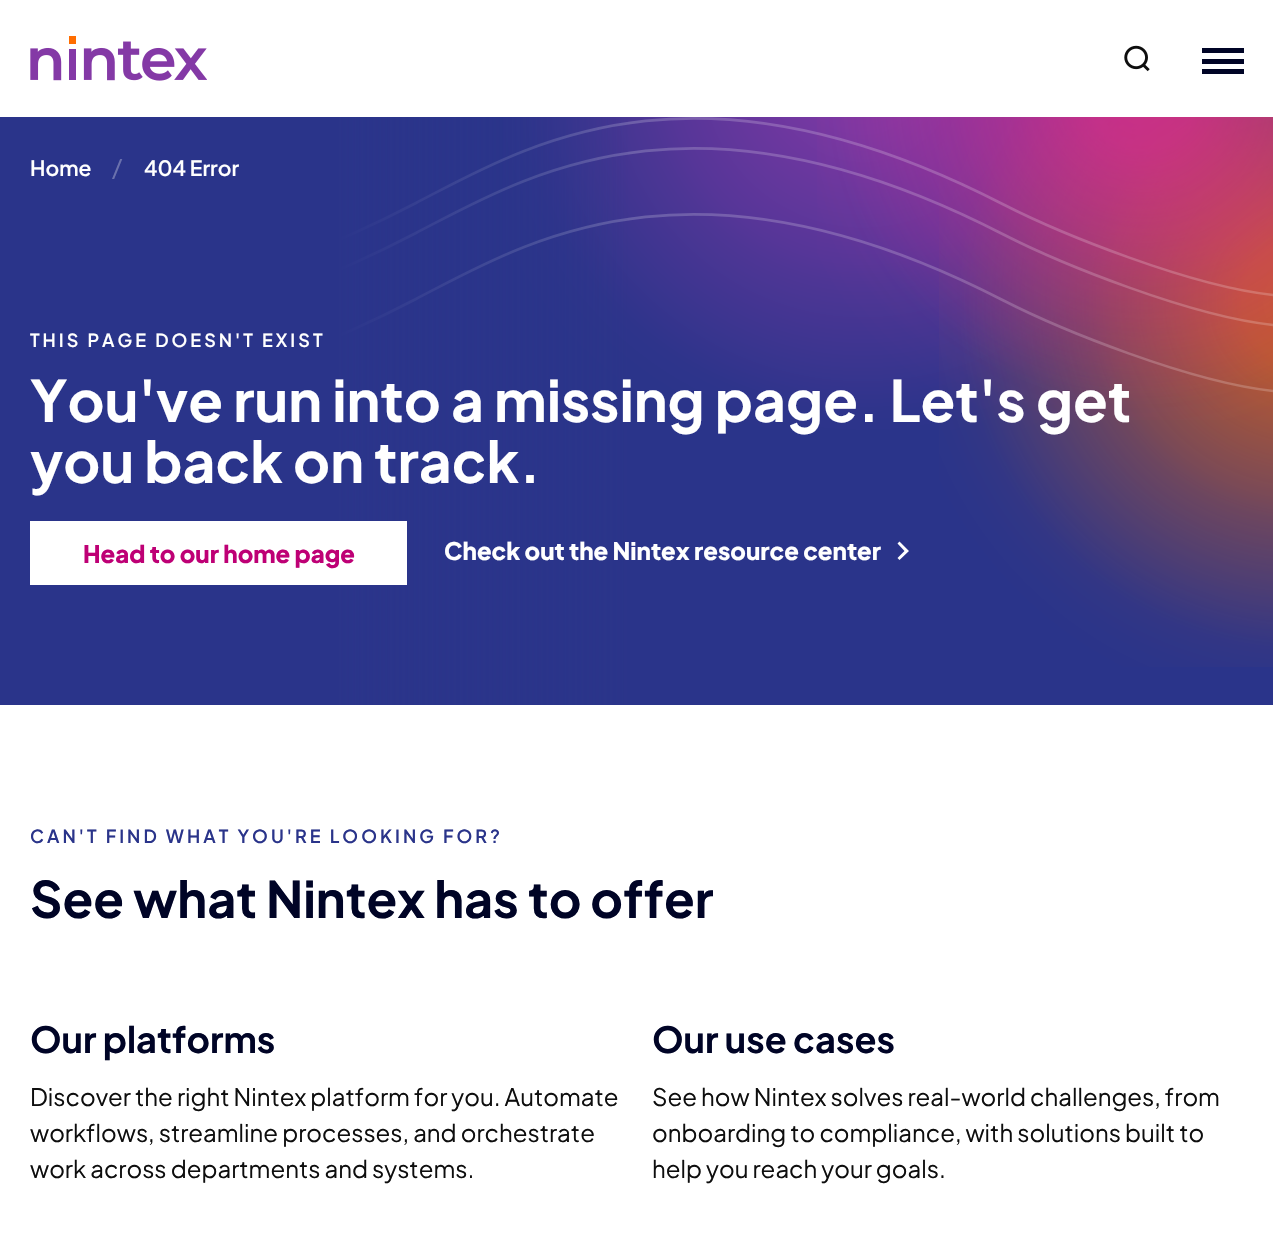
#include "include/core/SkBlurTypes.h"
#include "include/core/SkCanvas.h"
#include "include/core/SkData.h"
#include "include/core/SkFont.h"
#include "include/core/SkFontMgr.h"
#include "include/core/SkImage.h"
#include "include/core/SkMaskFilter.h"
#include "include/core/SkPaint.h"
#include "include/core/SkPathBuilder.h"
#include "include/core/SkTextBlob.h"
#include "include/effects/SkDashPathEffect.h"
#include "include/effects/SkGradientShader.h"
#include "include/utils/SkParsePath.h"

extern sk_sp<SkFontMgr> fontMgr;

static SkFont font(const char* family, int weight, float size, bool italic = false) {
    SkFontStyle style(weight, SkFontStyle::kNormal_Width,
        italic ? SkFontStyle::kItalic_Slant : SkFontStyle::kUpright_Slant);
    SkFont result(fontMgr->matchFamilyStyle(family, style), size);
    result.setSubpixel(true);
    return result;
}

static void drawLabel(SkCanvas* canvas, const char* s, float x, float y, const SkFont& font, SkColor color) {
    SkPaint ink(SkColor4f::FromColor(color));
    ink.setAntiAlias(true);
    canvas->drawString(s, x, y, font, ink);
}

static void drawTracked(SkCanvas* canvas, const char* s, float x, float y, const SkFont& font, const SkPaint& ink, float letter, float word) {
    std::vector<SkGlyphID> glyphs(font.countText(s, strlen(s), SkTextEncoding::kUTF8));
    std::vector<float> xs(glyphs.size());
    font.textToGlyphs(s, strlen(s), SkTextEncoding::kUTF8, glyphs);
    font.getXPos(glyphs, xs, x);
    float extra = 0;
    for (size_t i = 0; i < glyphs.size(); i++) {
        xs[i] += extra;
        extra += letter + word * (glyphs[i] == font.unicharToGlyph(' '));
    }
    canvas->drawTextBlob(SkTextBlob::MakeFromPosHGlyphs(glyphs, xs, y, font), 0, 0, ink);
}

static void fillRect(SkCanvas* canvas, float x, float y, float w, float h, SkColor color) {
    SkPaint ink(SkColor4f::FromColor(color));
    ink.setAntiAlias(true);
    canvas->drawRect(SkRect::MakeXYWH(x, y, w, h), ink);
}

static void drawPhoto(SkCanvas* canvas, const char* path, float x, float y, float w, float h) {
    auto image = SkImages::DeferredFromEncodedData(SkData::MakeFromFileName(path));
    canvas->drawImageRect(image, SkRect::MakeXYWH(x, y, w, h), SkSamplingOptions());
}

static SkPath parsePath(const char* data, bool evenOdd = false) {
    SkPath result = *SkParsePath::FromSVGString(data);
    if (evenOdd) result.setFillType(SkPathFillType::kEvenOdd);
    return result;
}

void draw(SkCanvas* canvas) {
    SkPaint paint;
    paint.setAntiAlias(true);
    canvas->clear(0xFFFFFFFF);
    drawPhoto(canvas, "assets/img1.png", 30, 36, 177, 45);
    drawPhoto(canvas, "assets/img2.png", 1124, 45, 26, 27);
    fillRect(canvas, 1202, 48, 42, 5, 0xFF000426);
    fillRect(canvas, 1202, 59, 42, 5, 0xFF000426);
    fillRect(canvas, 1202, 69, 42, 5, 0xFF000426);
    fillRect(canvas, 340, 117, 933, 588, 0xFF2A348A);
    {
        const SkColor colors[] = {0xFF7B39A3, 0xFF7A38A3, 0xFF7738A2, 0xFF563698, 0xFF4E3695, 0xFF2E348B, 0xFF2B348A, 0xFF2A348A};
        const float stops[] = {0, 0.08f, 0.15f, 0.47f, 0.53f, 0.84f, 0.92f, 1};
        SkMatrix m = SkMatrix::Translate(863, 67).preScale(413, 412);
        paint.setShader(SkGradientShader::MakeRadial({0, 0}, 1, colors, stops, 8, SkTileMode::kClamp, 0, &m));
        paint.setAlpha(255);
    }
    canvas->drawRect(SkRect::MakeXYWH(504, 117, 718, 313), paint);
    {
        const SkColor colors[] = {0xB3FF6D00, 0xB0FF6D00, 0xABFF6D00, 0x61FF6D00, 0x4FFF6D00, 0x0AFF6D00, 0x03FF6D00, 0x00FF6D00};
        const float stops[] = {0, 0.08f, 0.15f, 0.47f, 0.53f, 0.84f, 0.92f, 1};
        SkMatrix m = SkMatrix::Translate(1305, 302).preScale(412, 413);
        paint.setShader(SkGradientShader::MakeRadial({0, 0}, 1, colors, stops, 8, SkTileMode::kClamp, 0, &m));
        paint.setAlpha(255);
    }
    canvas->drawRect(SkRect::MakeXYWH(939, 117, 334, 550), paint);
    {
        const SkColor colors[] = {0xB3ED2891, 0xB0ED2891, 0xABED2891, 0x61ED2891, 0x4FED2891, 0x0AED2891, 0x03ED2891, 0x00ED2891};
        const float stops[] = {0, 0.08f, 0.15f, 0.47f, 0.53f, 0.84f, 0.92f, 1};
        paint.setShader(SkGradientShader::MakeRadial({1143, 93}, 368, colors, stops, 8, SkTileMode::kClamp));
        paint.setAlpha(255);
    }
    canvas->drawRect(SkRect::MakeXYWH(817, 117, 456, 303), paint);
    paint.setStroke(true);
    paint.setStrokeWidth(2.6f);
    paint.setShader(nullptr);
    paint.setColor(0x33FFFFFF);
    canvas->drawPath(parsePath("M.5 391C121 399.5 229.5 396 416 299C523 243.5 690.5 139.5 1002.5 300C1060 329.5 1191 382.5 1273.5 391M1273.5 391C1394 399.5 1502.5 396 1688.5 299C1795.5 243.5 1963.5 139.5 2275.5 300C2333 329.5 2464 382.5 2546.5 391"), paint);
    canvas->drawPath(parsePath("M.5 295C121 303.5 229.5 300 416 203C523 147.5 690.5 43.5 1002.5 204C1060 233.5 1191 286.5 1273.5 295M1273.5 295C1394 303.5 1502.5 300 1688.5 203C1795.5 147.5 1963.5 43.5 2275.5 204C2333 233.5 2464 286.5 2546.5 295"), paint);
    canvas->drawPath(parsePath("M.5 325C121 333.5 229.5 330 416 233C523 177.5 690.5 73.5 1002.5 234C1060 263.5 1191 316.5 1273.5 325M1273.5 325C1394 333.5 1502.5 330 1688.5 233C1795.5 177.5 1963.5 73.5 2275.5 234C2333 263.5 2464 316.5 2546.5 325"), paint);
    paint.setStroke(false);
    {
        const SkColor colors[] = {0xFF2A348A, 0xFF2A348A, 0x002A348A};
        const float stops[] = {0, 0.53f, 1};
        const SkPoint ends[] = {{0, 411}, {638, 411}};
        paint.setShader(SkGradientShader::MakeLinear(ends, colors, stops, 3, SkTileMode::kClamp));
        paint.setAlpha(255);
    }
    canvas->drawRect(SkRect::MakeXYWH(0, 117, 628, 588), paint);
    SkFont font1 = font("Plus Jakarta Sans", 600, 21);
    drawLabel(canvas, "Home", 30, 176, font1, 0xFFFFFFFF);
    SkFont font2 = font("Plus Jakarta Sans", 400, 24);
    drawLabel(canvas, "/", 112, 176, font2, 0xFF6A71AD);
    drawLabel(canvas, "404 Error", 144, 176, font1, 0xFFFFFFFF);
    SkFont font3 = font("Plus Jakarta Sans", 600, 18);
    paint.setShader(nullptr);
    paint.setColor(0xFFFFFFFF);
    drawTracked(canvas, "THIS PAGE DOESN'T EXIST", 30, 347, font3, paint, 3, 0);
    SkFont font4 = font("Plus Jakarta Sans", 700, 56.9f);
    drawLabel(canvas, "You've run into a missing page. Let's get", 30, 422, font4, 0xFFFFFFFF);
    drawLabel(canvas, "you back on track.", 30, 483, font4, 0xFFFFFFFF);
    fillRect(canvas, 30, 521, 377, 64, 0xFFFFFFFF);
    SkFont font5 = font("Plus Jakarta Sans", 800, 24);
    drawLabel(canvas, "Head to our home page", 83, 563, font5, 0xFFBE0075);
    drawLabel(canvas, "Check out the Nintex resource center", 444, 560, font5, 0xFFFFFFFF);
    canvas->drawPath(parsePath("M899.5 541.5L897.5 543.5L904.5 551L897.5 558L899.5 560L909 551Z", true), paint);
    paint.setColor(0xFF2A348A);
    drawTracked(canvas, "CAN'T FIND WHAT YOU'RE LOOKING FOR?", 30, 843, font3, paint, 3, 0);
    SkFont font6 = font("Plus Jakarta Sans", 700, 50.25f);
    drawLabel(canvas, "See what Nintex has to offer", 30, 918, font6, 0xFF000426);
    SkFont font7 = font("Plus Jakarta Sans", 700, 36);
    drawLabel(canvas, "Our platforms", 30, 1053, font7, 0xFF000426);
    drawLabel(canvas, "Discover the right Nintex platform for you. Automate", 30, 1106, font2, 0xFF0E0E0E);
    drawLabel(canvas, "workflows, streamline processes, and orchestrate", 30, 1142, font2, 0xFF0E0E0E);
    drawLabel(canvas, "work across departments and systems.", 30, 1178, font2, 0xFF0E0E0E);
    drawLabel(canvas, "Our use cases", 652, 1053, font7, 0xFF000426);
    drawLabel(canvas, "See how Nintex solves real-world challenges, from", 652, 1106, font2, 0xFF0E0E0E);
    drawLabel(canvas, "onboarding to compliance, with solutions built to", 652, 1142, font2, 0xFF0E0E0E);
    drawLabel(canvas, "help you reach your goals.", 652, 1178, font2, 0xFF0E0E0E);
}
